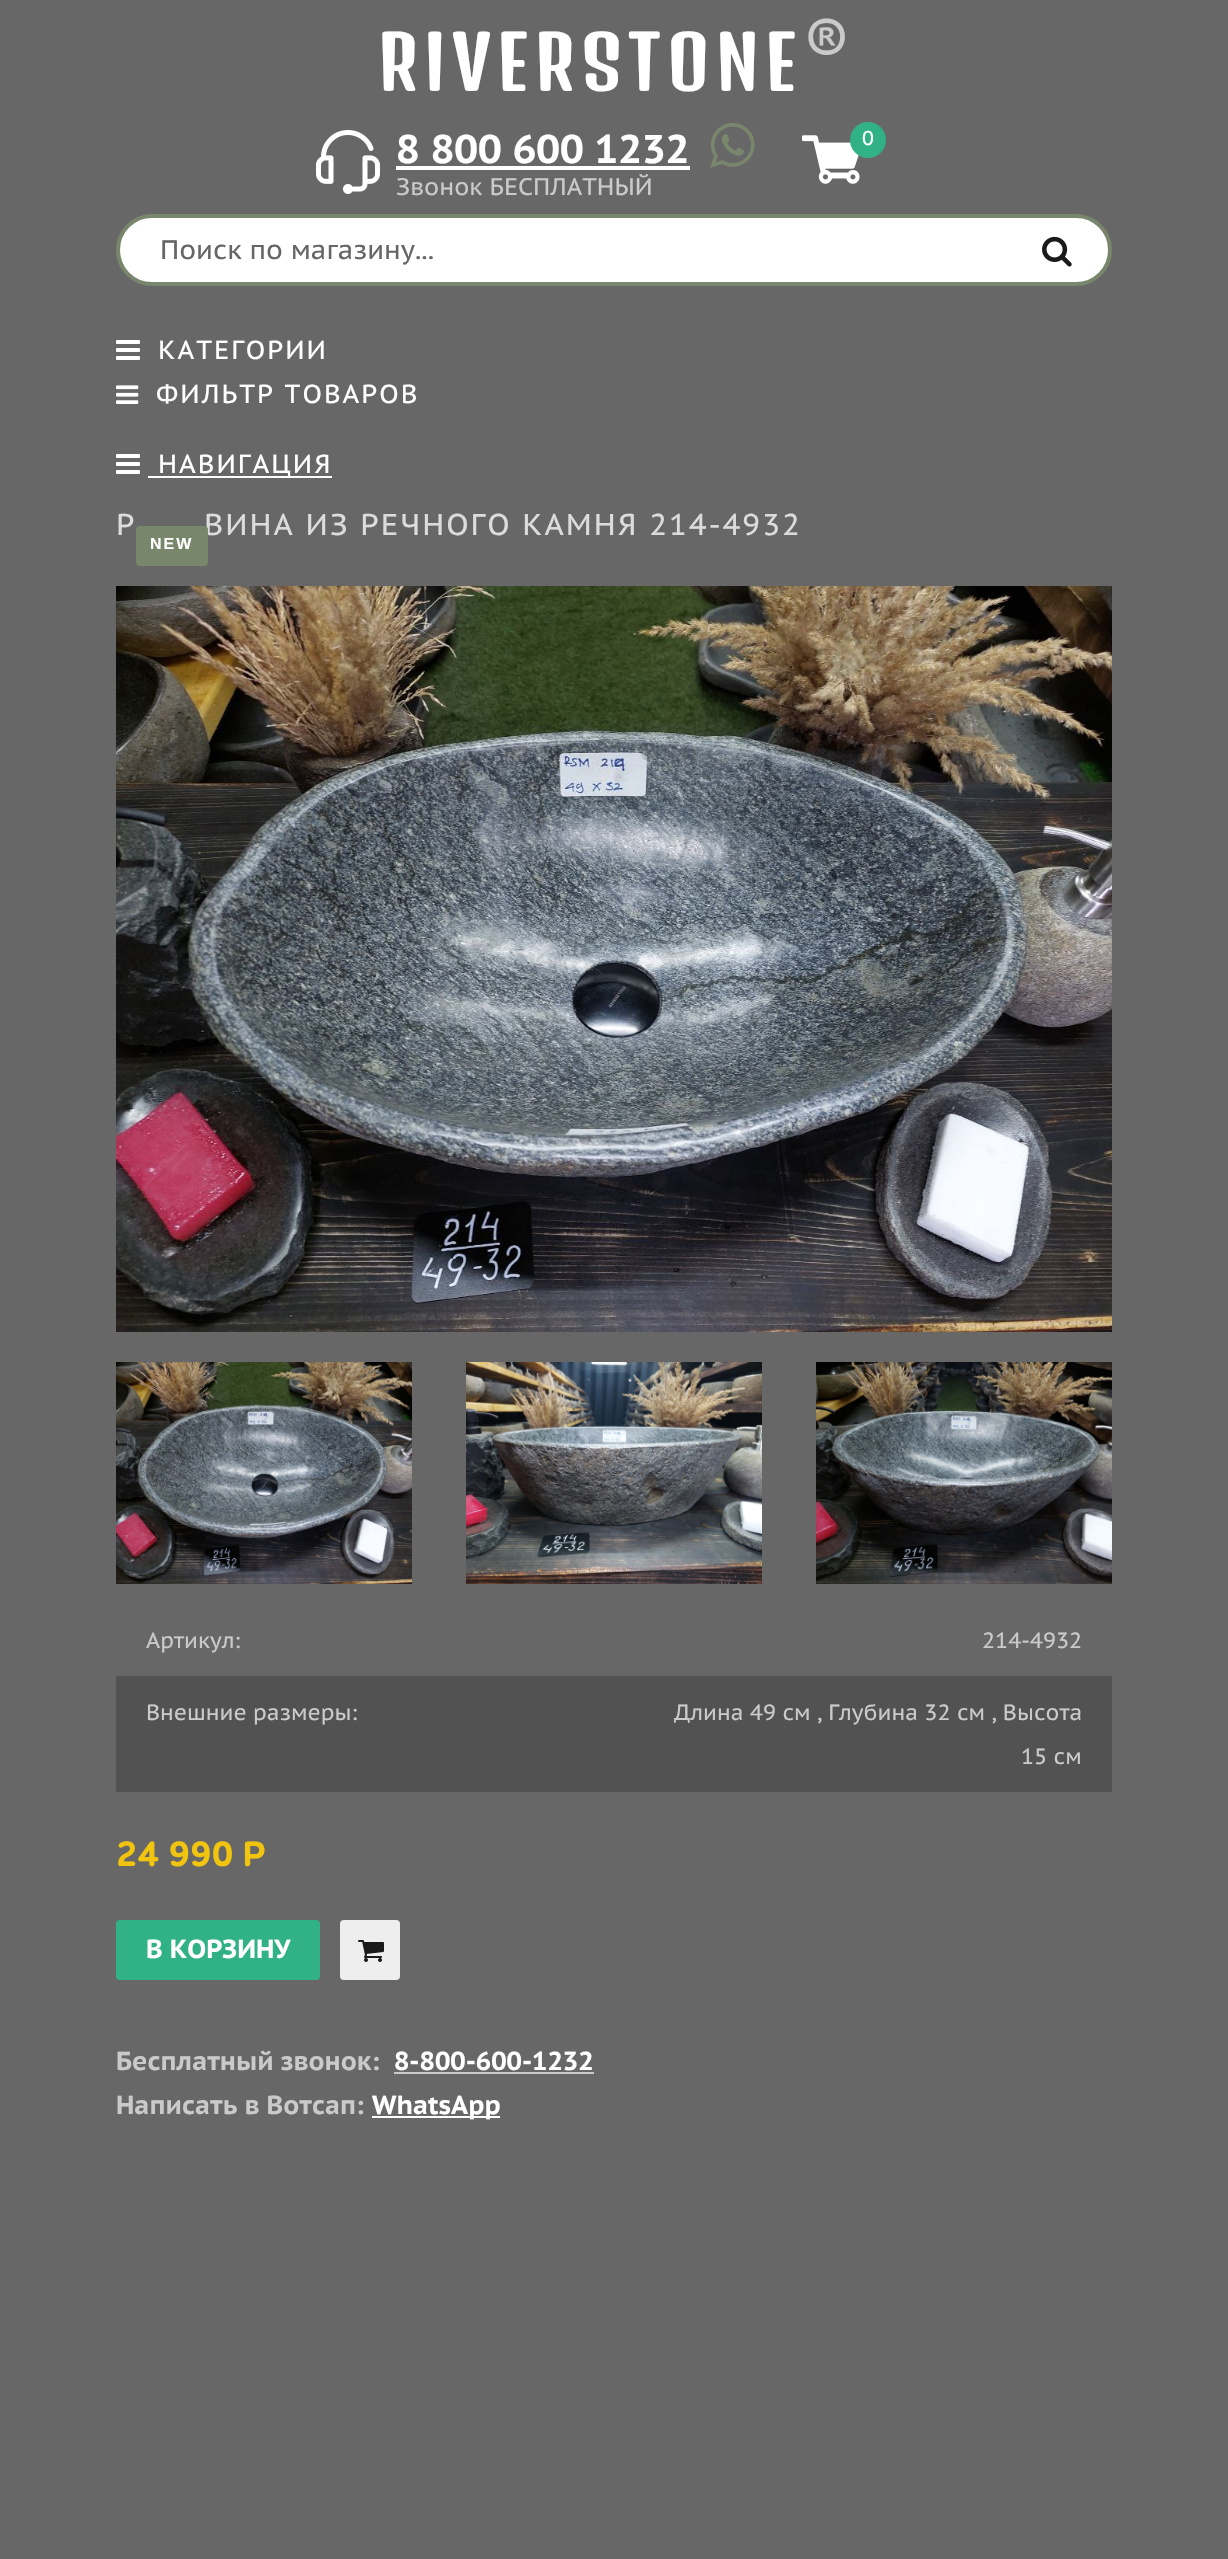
#include "include/core/SkBlurTypes.h"
#include "include/core/SkCanvas.h"
#include "include/core/SkData.h"
#include "include/core/SkFont.h"
#include "include/core/SkFontMgr.h"
#include "include/core/SkImage.h"
#include "include/core/SkMaskFilter.h"
#include "include/core/SkPaint.h"
#include "include/core/SkPathBuilder.h"
#include "include/core/SkTextBlob.h"
#include "include/effects/SkDashPathEffect.h"
#include "include/effects/SkGradientShader.h"
#include "include/utils/SkParsePath.h"

extern sk_sp<SkFontMgr> fontMgr;

static SkFont font(const char* family, int weight, float size, bool italic = false) {
    SkFontStyle style(weight, SkFontStyle::kNormal_Width,
        italic ? SkFontStyle::kItalic_Slant : SkFontStyle::kUpright_Slant);
    SkFont result(fontMgr->matchFamilyStyle(family, style), size);
    result.setSubpixel(true);
    return result;
}

static void drawLabel(SkCanvas* canvas, const char* s, float x, float y, const SkFont& font, SkColor color) {
    SkPaint ink(SkColor4f::FromColor(color));
    ink.setAntiAlias(true);
    canvas->drawString(s, x, y, font, ink);
}

static void drawTracked(SkCanvas* canvas, const char* s, float x, float y, const SkFont& font, const SkPaint& ink, float letter, float word) {
    std::vector<SkGlyphID> glyphs(font.countText(s, strlen(s), SkTextEncoding::kUTF8));
    std::vector<float> xs(glyphs.size());
    font.textToGlyphs(s, strlen(s), SkTextEncoding::kUTF8, glyphs);
    font.getXPos(glyphs, xs, x);
    float extra = 0;
    for (size_t i = 0; i < glyphs.size(); i++) {
        xs[i] += extra;
        extra += letter + word * (glyphs[i] == font.unicharToGlyph(' '));
    }
    canvas->drawTextBlob(SkTextBlob::MakeFromPosHGlyphs(glyphs, xs, y, font), 0, 0, ink);
}

static void fillRect(SkCanvas* canvas, float x, float y, float w, float h, SkColor color) {
    SkPaint ink(SkColor4f::FromColor(color));
    ink.setAntiAlias(true);
    canvas->drawRect(SkRect::MakeXYWH(x, y, w, h), ink);
}

static void fillRRect(SkCanvas* canvas, float x, float y, float w, float h, float radius, SkColor color) {
    SkPaint ink(SkColor4f::FromColor(color));
    ink.setAntiAlias(true);
    canvas->drawRoundRect(SkRect::MakeXYWH(x, y, w, h), radius, radius, ink);
}

static void drawPhoto(SkCanvas* canvas, const char* path, float x, float y, float w, float h) {
    auto image = SkImages::DeferredFromEncodedData(SkData::MakeFromFileName(path));
    canvas->drawImageRect(image, SkRect::MakeXYWH(x, y, w, h), SkSamplingOptions());
}

void draw(SkCanvas* canvas) {
    SkPaint paint;
    paint.setAntiAlias(true);
    canvas->clear(0xFF676767);
    SkFont font1 = font("Denk One", 400, 72);
    paint.setColor(0xFFFFFFFF);
    drawTracked(canvas, "RIVERSTONE", 378, 91, font1, paint, 6, 0);
    SkFont font2 = font("PT Sans Caption", 400, 63);
    drawLabel(canvas, "®", 803, 64, font2, 0xFFCACACA);
    drawPhoto(canvas, "assets/img1.png", 316, 130, 64, 64);
    SkFont font3 = font("PT Sans Caption", 700, 40);
    drawLabel(canvas, "8 800 600 1232", 396, 163, font3, 0xFFFFFFFF);
    fillRect(canvas, 396, 166, 294, 4, 0xFFFFFFFF);
    drawPhoto(canvas, "assets/img2.png", 710, 123, 45, 45);
    SkFont font4 = font("PT Sans Caption", 400, 24);
    drawLabel(canvas, "Звонок БЕСПЛАТНЫЙ", 396, 195, font4, 0xFFCACACA);
    drawPhoto(canvas, "assets/img3.png", 802, 135, 58, 49);
    paint.setColor(0xFF30B286);
    canvas->drawCircle(868, 140, 18, paint);
    SkFont font5 = font("PT Sans Caption", 400, 20);
    drawLabel(canvas, "0", 862, 145, font5, 0xFFFFFFFF);
    paint.setColor(0xFFFFFFFF);
    canvas->drawRoundRect(SkRect::MakeXYWH(118, 216, 992, 68), 34, 34, paint);
    paint.setStroke(true);
    paint.setStrokeWidth(4);
    paint.setColor(0xFF78866B);
    canvas->drawRoundRect(SkRect::MakeXYWH(118, 216, 992, 68), 34, 34, paint);
    SkFont font6 = font("PT Sans Caption", 400, 26.75f);
    drawLabel(canvas, "Поиск по магазину...", 160, 259, font6, 0xFF666666);
    drawPhoto(canvas, "assets/img4.png", 1042, 236, 30, 31);
    drawPhoto(canvas, "assets/img5.png", 116, 340, 24, 20);
    SkFont font7 = font("PT Sans Caption", 400, 26);
    paint.setStroke(false);
    paint.setColor(0xFFFFFFFF);
    drawTracked(canvas, "КАТЕГОРИИ", 158, 359, font7, paint, 2, 0);
    drawPhoto(canvas, "assets/img6.png", 116, 385, 23, 19);
    drawTracked(canvas, "ФИЛЬТР ТОВАРОВ", 156, 403, font7, paint, 2, 0);
    drawPhoto(canvas, "assets/img5.png", 116, 454, 24, 20);
    fillRect(canvas, 148, 476, 184, 2, 0xFFFFFFFF);
    drawTracked(canvas, "НАВИГАЦИЯ", 158, 473, font7, paint, 2, 0);
    SkFont font8 = font("PT Sans Caption", 400, 30);
    paint.setColor(0xFFDCDCDC);
    drawTracked(canvas, "Р", 116, 535, font8, paint, 2, 0);
    drawTracked(canvas, "ВИНА ИЗ РЕЧНОГО КАМНЯ 214-4932", 204, 535, font8, paint, 2, 0);
    fillRRect(canvas, 136, 526, 72, 40, 4, 0xFF78866B);
    SkFont font9 = font("Liberation Sans", 700, 16);
    paint.setColor(0xFFFFFFFF);
    drawTracked(canvas, "NEW", 150, 549, font9, paint, 2, 0);
    drawPhoto(canvas, "assets/img7.png", 116, 586, 996, 746);
    drawPhoto(canvas, "assets/img8.png", 116, 1362, 296, 222);
    drawPhoto(canvas, "assets/img9.png", 466, 1362, 296, 222);
    drawPhoto(canvas, "assets/img10.png", 816, 1362, 296, 222);
    SkFont font10 = font("PT Sans Caption", 400, 22);
    drawLabel(canvas, "Артикул:", 146, 1648, font10, 0xFFCACACA);
    drawLabel(canvas, "214-4932", 982, 1648, font10, 0xFFCACACA);
    fillRect(canvas, 116, 1676, 996, 116, 0xFF525252);
    drawLabel(canvas, "Внешние размеры:", 146, 1720, font10, 0xFFCACACA);
    drawLabel(canvas, "Длина 49 см , Глубина 32 см , Высота", 674, 1720, font10, 0xFFCACACA);
    drawLabel(canvas, "15 см", 1021, 1764, font10, 0xFFCACACA);
    SkFont font11 = font("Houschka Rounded", 700, 36);
    drawLabel(canvas, "24 990 Р", 116, 1866, font11, 0xFFF1C40F);
    fillRRect(canvas, 116, 1920, 204, 60, 4, 0xFF30B286);
    SkFont font12 = font("PT Sans Caption", 700, 26);
    drawLabel(canvas, "В КОРЗИНУ", 146, 1958, font12, 0xFFFFFFFF);
    fillRRect(canvas, 340, 1920, 60, 60, 4, 0xFFEEEEEE);
    drawPhoto(canvas, "assets/img11.png", 358, 1940, 26, 22);
    drawLabel(canvas, "Бесплатный звонок:", 116, 2070, font12, 0xFFCACACA);
    drawLabel(canvas, "8-800-600-1232", 394, 2070, font12, 0xFFFFFFFF);
    fillRect(canvas, 394, 2072, 200, 2, 0xFFCACACA);
    drawLabel(canvas, "Написать в Вотсап:", 116, 2114, font12, 0xFFCACACA);
    fillRect(canvas, 372, 2116, 128, 2, 0xFFFFFFFF);
    drawLabel(canvas, "WhatsApp", 372, 2114, font12, 0xFFFFFFFF);
}
